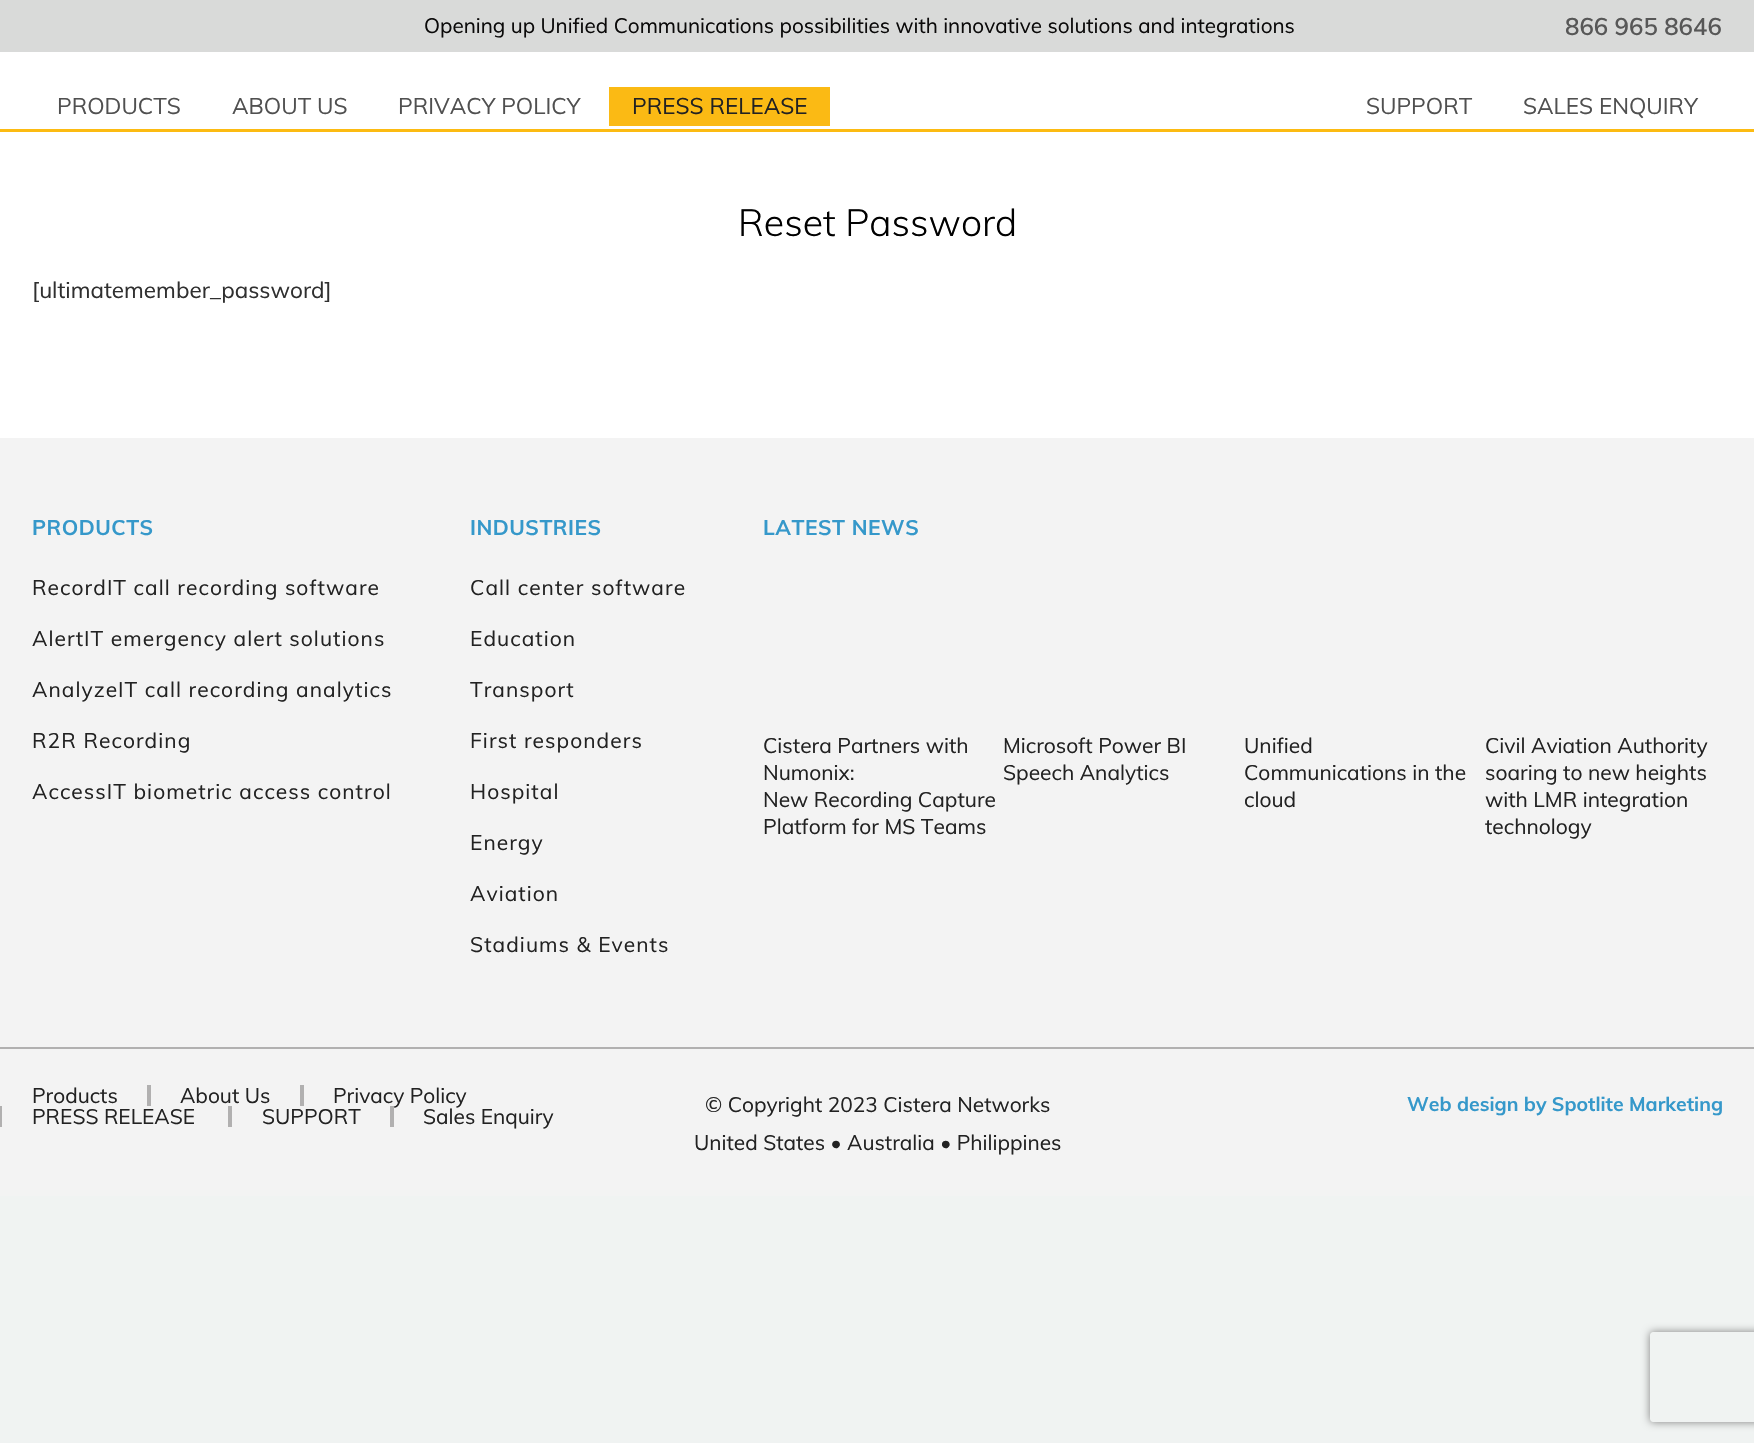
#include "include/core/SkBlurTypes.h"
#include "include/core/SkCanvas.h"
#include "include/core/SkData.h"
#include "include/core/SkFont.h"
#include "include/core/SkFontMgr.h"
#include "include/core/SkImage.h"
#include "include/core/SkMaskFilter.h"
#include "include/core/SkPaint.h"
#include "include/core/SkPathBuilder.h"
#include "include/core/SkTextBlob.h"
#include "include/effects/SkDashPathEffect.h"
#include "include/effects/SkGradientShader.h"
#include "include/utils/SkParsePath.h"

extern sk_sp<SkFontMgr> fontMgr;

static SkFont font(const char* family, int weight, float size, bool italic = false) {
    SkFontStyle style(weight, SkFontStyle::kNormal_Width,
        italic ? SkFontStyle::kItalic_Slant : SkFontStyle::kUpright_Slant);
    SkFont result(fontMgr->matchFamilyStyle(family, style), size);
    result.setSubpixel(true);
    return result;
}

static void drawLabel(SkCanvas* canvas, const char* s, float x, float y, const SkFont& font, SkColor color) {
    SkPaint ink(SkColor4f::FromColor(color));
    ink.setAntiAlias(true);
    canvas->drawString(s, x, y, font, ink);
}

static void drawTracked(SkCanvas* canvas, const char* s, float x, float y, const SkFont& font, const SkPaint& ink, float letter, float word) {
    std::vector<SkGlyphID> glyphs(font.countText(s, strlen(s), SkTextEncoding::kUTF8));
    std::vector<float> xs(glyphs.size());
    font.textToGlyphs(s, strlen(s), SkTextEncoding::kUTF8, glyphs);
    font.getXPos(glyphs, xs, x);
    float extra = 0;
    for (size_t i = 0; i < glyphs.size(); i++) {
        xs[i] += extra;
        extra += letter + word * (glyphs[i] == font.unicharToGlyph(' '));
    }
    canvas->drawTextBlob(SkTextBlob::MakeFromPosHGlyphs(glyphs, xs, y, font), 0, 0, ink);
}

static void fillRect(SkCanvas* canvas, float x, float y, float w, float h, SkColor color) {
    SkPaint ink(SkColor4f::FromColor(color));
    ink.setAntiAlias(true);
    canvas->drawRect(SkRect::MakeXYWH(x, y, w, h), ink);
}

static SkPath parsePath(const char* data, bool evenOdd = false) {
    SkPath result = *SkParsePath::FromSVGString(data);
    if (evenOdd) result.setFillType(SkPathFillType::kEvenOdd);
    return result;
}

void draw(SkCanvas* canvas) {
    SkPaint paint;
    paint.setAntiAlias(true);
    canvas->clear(0xFFF0F3F2);
    fillRect(canvas, 0, 0, 1754, 52, 0xFFD9DAD9);
    SkFont font1 = font("Muli", 400, 20.7f);
    drawLabel(canvas, "Opening up Unified Communications possibilities with innovative solutions and integrations", 424, 33, font1, 0xFF0B0A0A);
    SkFont font2 = font("Muli", 600, 24);
    drawLabel(canvas, "866 965 8646", 1565, 35, font2, 0xFF575757);
    fillRect(canvas, 0, 52, 1754, 77, 0xFFFFFFFF);
    fillRect(canvas, 0, 129, 1754, 3, 0xFFFCBB12);
    SkFont font3 = font("Muli", 400, 22.5f);
    drawLabel(canvas, "PRODUCTS", 57, 114, font3, 0xFF505050);
    drawLabel(canvas, "ABOUT US", 232, 114, font3, 0xFF505050);
    drawLabel(canvas, "PRIVACY POLICY", 398, 114, font3, 0xFF505050);
    fillRect(canvas, 609, 87, 221, 39, 0xFFFBBA14);
    drawLabel(canvas, "PRESS RELEASE", 632, 114, font3, 0xFF222222);
    drawLabel(canvas, "SUPPORT", 1366, 114, font3, 0xFF505050);
    drawLabel(canvas, "SALES ENQUIRY", 1523, 114, font3, 0xFF505050);
    fillRect(canvas, 0, 132, 1754, 306, 0xFFFFFFFF);
    SkFont font4 = font("Muli", 300, 37.5f);
    drawLabel(canvas, "Reset Password", 738, 236, font4, 0xFF000000);
    drawLabel(canvas, "[ultimatemember_password]", 32, 298, font3, 0xFF303030);
    fillRect(canvas, 0, 438, 1754, 609, 0xFFF3F3F3);
    SkFont font5 = font("Muli", 700, 21);
    paint.setColor(0xFF3598CA);
    drawTracked(canvas, "PRODUCTS", 32, 535, font5, paint, 0.5f, 0);
    SkFont font6 = font("Muli", 400, 21);
    paint.setColor(0xFF222222);
    drawTracked(canvas, "RecordIT call recording software", 32, 595, font6, paint, 1.05f, 0);
    drawTracked(canvas, "AlertIT emergency alert solutions", 32, 646, font6, paint, 1.05f, 0);
    drawTracked(canvas, "AnalyzeIT call recording analytics", 32, 697, font6, paint, 1.05f, 0);
    drawTracked(canvas, "R2R Recording", 32, 748, font6, paint, 1.05f, 0);
    drawTracked(canvas, "AccessIT biometric access control", 32, 799, font6, paint, 1.05f, 0);
    paint.setColor(0xFF3598CA);
    drawTracked(canvas, "INDUSTRIES", 470, 535, font5, paint, 0.5f, 0);
    paint.setColor(0xFF222222);
    drawTracked(canvas, "Call center software", 470, 595, font6, paint, 1.05f, 0);
    drawTracked(canvas, "Education", 470, 646, font6, paint, 1.05f, 0);
    drawTracked(canvas, "Transport", 470, 697, font6, paint, 1.05f, 0);
    drawTracked(canvas, "First responders", 470, 748, font6, paint, 1.05f, 0);
    drawTracked(canvas, "Hospital", 470, 799, font6, paint, 1.05f, 0);
    drawTracked(canvas, "Energy", 470, 850, font6, paint, 1.05f, 0);
    drawTracked(canvas, "Aviation", 470, 901, font6, paint, 1.05f, 0);
    drawTracked(canvas, "Stadiums & Events", 470, 952, font6, paint, 1.05f, 0);
    paint.setColor(0xFF3598CA);
    drawTracked(canvas, "LATEST NEWS", 763, 535, font5, paint, 0.5f, 0);
    drawLabel(canvas, "Cistera Partners with", 763, 753, font6, 0xFF222222);
    drawLabel(canvas, "Numonix:", 763, 780, font6, 0xFF222222);
    drawLabel(canvas, "New Recording Capture", 763, 807, font6, 0xFF222222);
    drawLabel(canvas, "Platform for MS Teams", 763, 834, font6, 0xFF222222);
    drawLabel(canvas, "Microsoft Power BI", 1003, 753, font6, 0xFF222222);
    drawLabel(canvas, "Speech Analytics", 1003, 780, font6, 0xFF222222);
    drawLabel(canvas, "Unified", 1244, 753, font6, 0xFF222222);
    drawLabel(canvas, "Communications in the", 1244, 780, font6, 0xFF222222);
    drawLabel(canvas, "cloud", 1244, 807, font6, 0xFF222222);
    drawLabel(canvas, "Civil Aviation Authority", 1485, 753, font6, 0xFF222222);
    drawLabel(canvas, "soaring to new heights", 1485, 780, font6, 0xFF222222);
    drawLabel(canvas, "with LMR integration", 1485, 807, font6, 0xFF222222);
    drawLabel(canvas, "technology", 1485, 834, font6, 0xFF222222);
    fillRect(canvas, 0, 1049, 1754, 147, 0xFFF3F3F3);
    fillRect(canvas, 0, 1047, 1754, 2, 0xFFB1B0B0);
    SkFont font7 = font("Muli", 400, 20.9f);
    drawLabel(canvas, "Products", 32, 1103, font7, 0xFF222222);
    fillRect(canvas, 147, 1085, 4, 21, 0xFFB1B0B0);
    drawLabel(canvas, "About Us", 180, 1103, font7, 0xFF222222);
    fillRect(canvas, 300, 1085, 4, 21, 0xFFB1B0B0);
    drawLabel(canvas, "Privacy Policy", 333, 1103, font7, 0xFF222222);
    fillRect(canvas, 0, 1106, 2, 21, 0xFFB1B0B0);
    drawLabel(canvas, "PRESS RELEASE", 32, 1124, font7, 0xFF222222);
    fillRect(canvas, 228, 1106, 4, 21, 0xFFB1B0B0);
    drawLabel(canvas, "SUPPORT", 262, 1124, font7, 0xFF222222);
    fillRect(canvas, 390, 1106, 4, 21, 0xFFB1B0B0);
    drawLabel(canvas, "Sales Enquiry", 423, 1124, font7, 0xFF222222);
    drawLabel(canvas, "© Copyright 2023 Cistera Networks", 705, 1112, font7, 0xFF222222);
    drawLabel(canvas, "United States • Australia • Philippines", 694, 1150, font7, 0xFF222222);
    SkFont font8 = font("Muli", 700, 19.5f);
    drawLabel(canvas, "Web design by Spotlite Marketing", 1407, 1111, font8, 0xFF3598CA);
    canvas->save();
    canvas->clipPath(parsePath("M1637 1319H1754V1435H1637ZM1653 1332H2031C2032.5 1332 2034 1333.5 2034 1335V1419C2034 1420.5 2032.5 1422 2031 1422H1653C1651.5 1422 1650 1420.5 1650 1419V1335C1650 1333.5 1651.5 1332 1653 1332Z", true), true);
    paint.setColor(0xFF808080);
    paint.setMaskFilter(SkMaskFilter::MakeBlur(kNormal_SkBlurStyle, 4));
    canvas->drawRoundRect(SkRect::MakeXYWH(1650, 1332, 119, 90), 3, 3, paint);
    paint.setMaskFilter(nullptr);
    canvas->restore();
}
